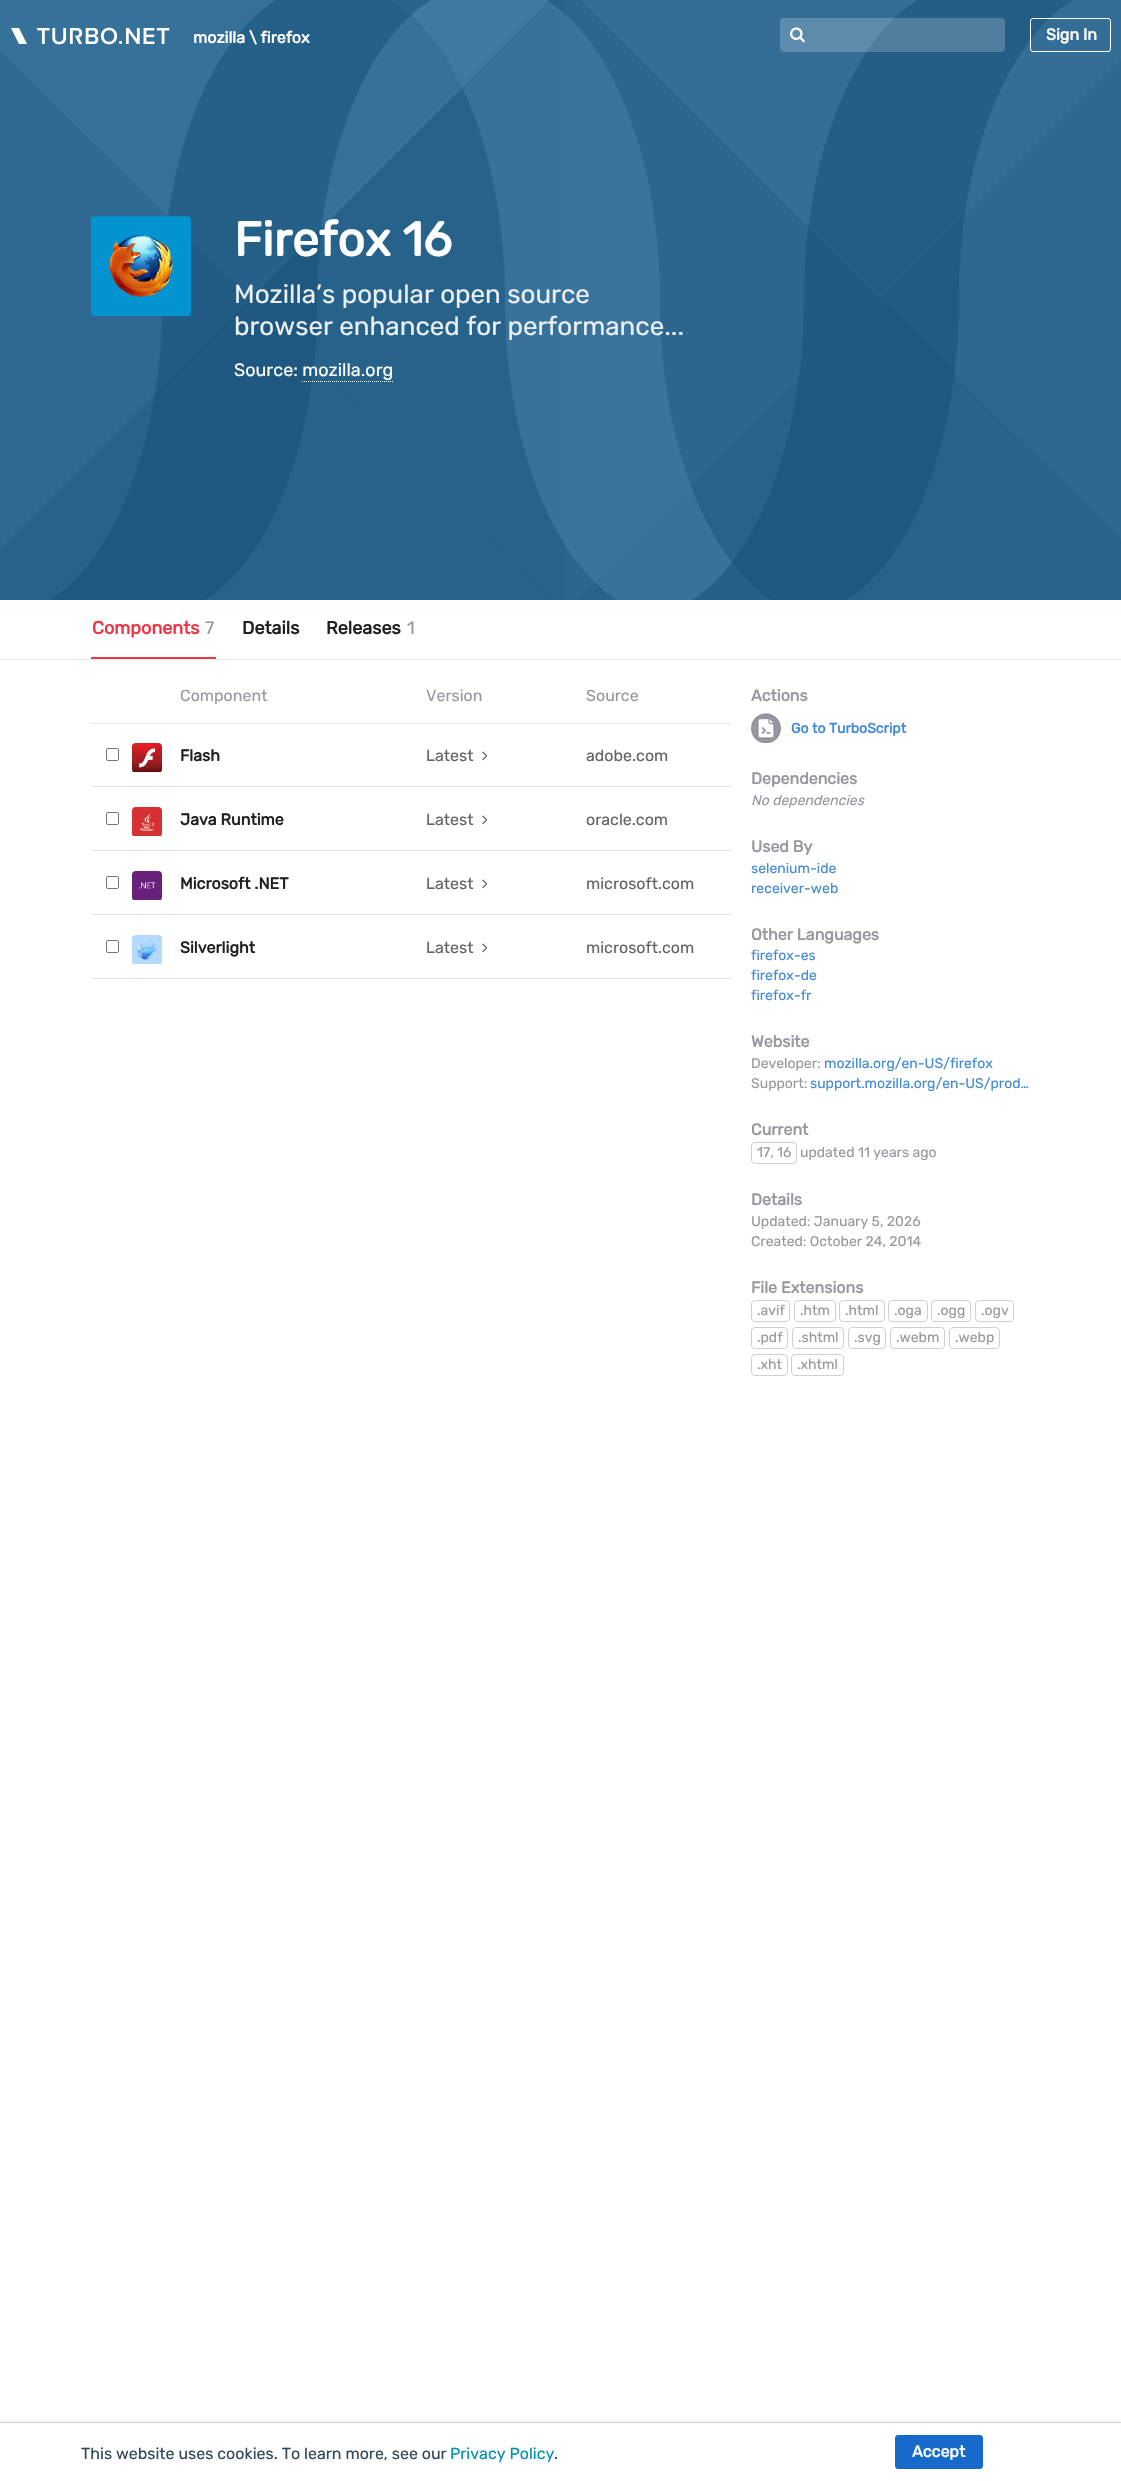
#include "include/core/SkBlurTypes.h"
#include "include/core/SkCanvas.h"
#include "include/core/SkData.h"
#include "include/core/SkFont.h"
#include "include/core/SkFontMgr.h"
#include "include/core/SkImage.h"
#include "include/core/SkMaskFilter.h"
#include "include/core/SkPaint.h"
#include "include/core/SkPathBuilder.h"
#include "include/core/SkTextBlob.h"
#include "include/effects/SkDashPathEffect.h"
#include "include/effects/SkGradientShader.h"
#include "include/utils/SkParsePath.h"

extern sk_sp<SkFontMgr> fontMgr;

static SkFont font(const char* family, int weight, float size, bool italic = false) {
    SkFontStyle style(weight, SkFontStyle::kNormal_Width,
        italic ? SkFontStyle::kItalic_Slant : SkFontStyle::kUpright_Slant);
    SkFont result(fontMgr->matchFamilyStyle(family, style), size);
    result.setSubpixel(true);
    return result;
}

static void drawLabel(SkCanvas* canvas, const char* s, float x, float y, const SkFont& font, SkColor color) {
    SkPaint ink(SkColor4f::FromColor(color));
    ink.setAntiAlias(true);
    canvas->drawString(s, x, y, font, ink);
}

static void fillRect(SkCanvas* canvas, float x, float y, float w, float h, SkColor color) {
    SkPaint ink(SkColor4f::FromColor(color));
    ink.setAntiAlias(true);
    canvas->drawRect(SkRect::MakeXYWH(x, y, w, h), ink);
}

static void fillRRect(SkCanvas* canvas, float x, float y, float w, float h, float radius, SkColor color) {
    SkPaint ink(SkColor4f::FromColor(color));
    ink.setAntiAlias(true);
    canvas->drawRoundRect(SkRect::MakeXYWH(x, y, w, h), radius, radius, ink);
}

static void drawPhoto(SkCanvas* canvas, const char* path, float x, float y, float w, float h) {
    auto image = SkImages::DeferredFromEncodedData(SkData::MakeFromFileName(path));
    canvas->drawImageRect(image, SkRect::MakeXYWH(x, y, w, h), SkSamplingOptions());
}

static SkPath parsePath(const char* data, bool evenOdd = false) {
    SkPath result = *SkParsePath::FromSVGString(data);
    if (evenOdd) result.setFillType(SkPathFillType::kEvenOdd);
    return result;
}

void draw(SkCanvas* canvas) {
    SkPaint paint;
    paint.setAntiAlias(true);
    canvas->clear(0xFFFFFFFF);
    drawPhoto(canvas, "assets/img3.png", 0, 0, 1121, 600);
    drawPhoto(canvas, "assets/img1.png", 11, 27, 159, 18);
    SkFont font1 = font("Rubik", 700, 16);
    drawLabel(canvas, "mozilla", 193, 43, font1, 0xFFFFFFFF);
    drawLabel(canvas, "\\ firefox", 249, 43, font1, 0xFFFFFFFF);
    fillRRect(canvas, 780, 18, 225, 34, 4, 0x33FFFFFF);
    drawPhoto(canvas, "assets/img2.png", 790, 27, 15, 16);
    paint.setStroke(true);
    paint.setStrokeWidth(1);
    paint.setColor(0xFFFFFFFF);
    canvas->drawRoundRect(SkRect::MakeXYWH(1030.5f, 18.5f, 80, 33), 2.5f, 2.5f, paint);
    drawLabel(canvas, "Sign In", 1046, 40, font1, 0xFFFFFFFF);
    drawPhoto(canvas, "assets/img4.png", 91, 216, 100, 100);
    SkFont font2 = font("Rubik", 700, 48);
    drawLabel(canvas, "Firefox 16", 234, 256, font2, 0xFFFFFFFF);
    SkFont font3 = font("Rubik", 300, 26);
    drawLabel(canvas, "Mozilla’s popular open source", 234, 303, font3, 0xFFEAEFF3);
    drawLabel(canvas, "browser enhanced for performance...", 234, 335, font3, 0xFFEAEFF3);
    SkFont font4 = font("Rubik", 300, 18);
    drawLabel(canvas, "Source: mozilla.org", 234, 376, font4, 0xFFFFFFFF);
    paint.setPathEffect(SkDashPathEffect::Make({{1, 1}}, 0));
    canvas->drawPath(parsePath("M302 381.5H393"), paint);
    paint.setPathEffect(nullptr);
    fillRect(canvas, 0, 659, 1121, 1, 0xFFEDEDED);
    fillRect(canvas, 91, 657, 125, 2, 0xFFEF3443);
    SkFont font5 = font("Rubik", 700, 18);
    drawLabel(canvas, "Components", 92, 634, font5, 0xFFEF3443);
    drawLabel(canvas, "7", 205, 634, font4, 0xFF9898A0);
    drawLabel(canvas, "Details", 242, 634, font5, 0xFF212125);
    drawLabel(canvas, "Releases", 326, 634, font5, 0xFF212125);
    drawLabel(canvas, "1", 407, 634, font4, 0xFF9898A0);
    SkFont font6 = font("Rubik", 300, 16);
    drawLabel(canvas, "Component", 180, 701, font6, 0xFF9898A0);
    drawLabel(canvas, "Version", 426, 701, font6, 0xFF9898A0);
    drawLabel(canvas, "Source", 586, 701, font6, 0xFF9898A0);
    fillRect(canvas, 91, 723, 640, 1, 0xFFE5E5E5);
    fillRect(canvas, 91, 786, 640, 1, 0xFFE5E5E5);
    paint.setColor(0xFF767676);
    canvas->drawRoundRect(SkRect::MakeXYWH(106.5f, 748.5f, 12, 12), 1.5f, 1.5f, paint);
    drawPhoto(canvas, "assets/img5.png", 132, 743, 30, 29);
    drawLabel(canvas, "Flash", 180, 761, font1, 0xFF212125);
    drawLabel(canvas, "Latest", 426, 761, font6, 0xFF616366);
    drawPhoto(canvas, "assets/img6.png", 482, 751, 6, 10);
    drawLabel(canvas, "adobe.com", 586, 761, font6, 0xFF616366);
    fillRect(canvas, 91, 850, 640, 1, 0xFFE5E5E5);
    canvas->drawRoundRect(SkRect::MakeXYWH(106.5f, 812.5f, 12, 12), 1.5f, 1.5f, paint);
    drawPhoto(canvas, "assets/img7.png", 132, 807, 30, 29);
    drawLabel(canvas, "Java Runtime", 180, 825, font1, 0xFF212125);
    drawLabel(canvas, "Latest", 426, 825, font6, 0xFF616366);
    drawPhoto(canvas, "assets/img6.png", 482, 815, 6, 10);
    drawLabel(canvas, "oracle.com", 586, 825, font6, 0xFF616366);
    fillRect(canvas, 91, 914, 640, 1, 0xFFE5E5E5);
    canvas->drawRoundRect(SkRect::MakeXYWH(106.5f, 876.5f, 12, 12), 1.5f, 1.5f, paint);
    drawPhoto(canvas, "assets/img8.png", 132, 871, 30, 29);
    drawLabel(canvas, "Microsoft .NET", 180, 889, font1, 0xFF212125);
    drawLabel(canvas, "Latest", 426, 889, font6, 0xFF616366);
    drawPhoto(canvas, "assets/img6.png", 482, 879, 6, 10);
    drawLabel(canvas, "microsoft.com", 586, 889, font6, 0xFF616366);
    fillRect(canvas, 91, 978, 640, 1, 0xFFE5E5E5);
    canvas->drawRoundRect(SkRect::MakeXYWH(106.5f, 940.5f, 12, 12), 1.5f, 1.5f, paint);
    drawPhoto(canvas, "assets/img9.png", 132, 935, 30, 29);
    drawLabel(canvas, "Silverlight", 180, 953, font1, 0xFF212125);
    drawLabel(canvas, "Latest", 426, 953, font6, 0xFF616366);
    drawPhoto(canvas, "assets/img6.png", 482, 943, 6, 10);
    drawLabel(canvas, "microsoft.com", 586, 953, font6, 0xFF616366);
    drawLabel(canvas, "Actions", 751, 701, font1, 0xFF9898A0);
    drawPhoto(canvas, "assets/img10.png", 751, 713, 30, 30);
    SkFont font7 = font("Rubik", 700, 14);
    drawLabel(canvas, "Go to TurboScript", 791, 733, font7, 0xFF408BD6);
    drawLabel(canvas, "Dependencies", 751, 784, font1, 0xFF9898A0);
    SkFont font8 = font("Rubik", 300, 14, true);
    drawLabel(canvas, "No dependencies", 751, 805, font8, 0xFF9898A0);
    drawLabel(canvas, "Used By", 751, 852, font1, 0xFF9898A0);
    SkFont font9 = font("Rubik", 300, 14);
    drawLabel(canvas, "selenium-ide", 751, 873, font9, 0xFF408BD6);
    drawLabel(canvas, "receiver-web", 751, 893, font9, 0xFF408BD6);
    drawLabel(canvas, "Other Languages", 751, 940, font1, 0xFF9898A0);
    drawLabel(canvas, "firefox-es", 751, 960, font9, 0xFF408BD6);
    drawLabel(canvas, "firefox-de", 751, 980, font9, 0xFF408BD6);
    drawLabel(canvas, "firefox-fr", 751, 1000, font9, 0xFF408BD6);
    drawLabel(canvas, "Website", 751, 1047, font1, 0xFF9898A0);
    drawLabel(canvas, "Developer:", 751, 1068, font9, 0xFF9898A0);
    drawLabel(canvas, "mozilla.org/en-US/firefox", 824, 1068, font9, 0xFF408BD6);
    drawLabel(canvas, "Support:", 751, 1088, font9, 0xFF9898A0);
    drawLabel(canvas, "support.mozilla.org/en-US/prod…", 810, 1088, font9, 0xFF408BD6);
    drawLabel(canvas, "Current", 751, 1135, font1, 0xFF9898A0);
    paint.setColor(0xFFD0D0D0);
    canvas->drawRoundRect(SkRect::MakeXYWH(751.5f, 1142.5f, 45, 21), 3.5f, 3.5f, paint);
    drawLabel(canvas, "17, 16", 757, 1157, font9, 0xFF9898A0);
    drawLabel(canvas, "updated 11 years ago", 800, 1157, font9, 0xFF9898A0);
    drawLabel(canvas, "Details", 751, 1205, font1, 0xFF9898A0);
    drawLabel(canvas, "Updated: January 5, 2026", 751, 1226, font9, 0xFF9898A0);
    drawLabel(canvas, "Created: October 24, 2014", 751, 1246, font9, 0xFF9898A0);
    drawLabel(canvas, "File Extensions", 751, 1293, font1, 0xFF9898A0);
    canvas->drawRoundRect(SkRect::MakeXYWH(751.5f, 1300.5f, 38, 21), 3.5f, 3.5f, paint);
    drawLabel(canvas, ".avif", 757, 1315, font9, 0xFF9898A0);
    canvas->drawRoundRect(SkRect::MakeXYWH(794.5f, 1300.5f, 41, 21), 3.5f, 3.5f, paint);
    drawLabel(canvas, ".htm", 800, 1315, font9, 0xFF9898A0);
    canvas->drawRoundRect(SkRect::MakeXYWH(839.5f, 1300.5f, 45, 21), 3.5f, 3.5f, paint);
    drawLabel(canvas, ".html", 845, 1315, font9, 0xFF9898A0);
    canvas->drawRoundRect(SkRect::MakeXYWH(888.5f, 1300.5f, 39, 21), 3.5f, 3.5f, paint);
    drawLabel(canvas, ".oga", 894, 1315, font9, 0xFF9898A0);
    canvas->drawRoundRect(SkRect::MakeXYWH(931.5f, 1300.5f, 39, 21), 3.5f, 3.5f, paint);
    drawLabel(canvas, ".ogg", 937, 1315, font9, 0xFF9898A0);
    canvas->drawRoundRect(SkRect::MakeXYWH(975.5f, 1300.5f, 38, 21), 3.5f, 3.5f, paint);
    drawLabel(canvas, ".ogv", 981, 1315, font9, 0xFF9898A0);
    canvas->drawRoundRect(SkRect::MakeXYWH(751.5f, 1327.5f, 36, 21), 3.5f, 3.5f, paint);
    drawLabel(canvas, ".pdf", 757, 1342, font9, 0xFF9898A0);
    canvas->drawRoundRect(SkRect::MakeXYWH(792.5f, 1327.5f, 51, 21), 3.5f, 3.5f, paint);
    drawLabel(canvas, ".shtml", 798, 1342, font9, 0xFF9898A0);
    canvas->drawRoundRect(SkRect::MakeXYWH(848.5f, 1327.5f, 37, 21), 3.5f, 3.5f, paint);
    drawLabel(canvas, ".svg", 854, 1342, font9, 0xFF9898A0);
    canvas->drawRoundRect(SkRect::MakeXYWH(890.5f, 1327.5f, 54, 21), 3.5f, 3.5f, paint);
    drawLabel(canvas, ".webm", 896, 1342, font9, 0xFF9898A0);
    canvas->drawRoundRect(SkRect::MakeXYWH(949.5f, 1327.5f, 50, 21), 3.5f, 3.5f, paint);
    drawLabel(canvas, ".webp", 955, 1342, font9, 0xFF9898A0);
    canvas->drawRoundRect(SkRect::MakeXYWH(751.5f, 1354.5f, 36, 21), 3.5f, 3.5f, paint);
    drawLabel(canvas, ".xht", 757, 1369, font9, 0xFF9898A0);
    canvas->drawRoundRect(SkRect::MakeXYWH(791.5f, 1354.5f, 52, 21), 3.5f, 3.5f, paint);
    drawLabel(canvas, ".xhtml", 797, 1369, font9, 0xFF9898A0);
    paint.setStroke(false);
    paint.setColor(0xFFEAF0F6);
    paint.setMaskFilter(SkMaskFilter::MakeBlur(kNormal_SkBlurStyle, 1.5f));
    canvas->drawRect(SkRect::MakeXYWH(0, 2421, 1121, 59), paint);
    paint.setMaskFilter(nullptr);
    fillRect(canvas, 0, 2423, 1121, 58, 0xFFFFFFFF);
    fillRect(canvas, 0, 2422, 1121, 1, 0xFFCBD6E2);
    drawLabel(canvas, "This website uses cookies. To learn more, see our", 81, 2459, font6, 0xFF33475B);
    drawLabel(canvas, "Privacy Policy", 450, 2459, font6, 0xFF0091AE);
    drawLabel(canvas, ".", 554, 2459, font6, 0xFF33475B);
    paint.setColor(0xFF166ACC);
    canvas->drawRoundRect(SkRect::MakeXYWH(895.5f, 2435.5f, 87, 33), 2.5f, 2.5f, paint);
    paint.setStroke(true);
    canvas->drawRoundRect(SkRect::MakeXYWH(895.5f, 2435.5f, 87, 33), 2.5f, 2.5f, paint);
    drawLabel(canvas, "Accept", 912, 2457, font1, 0xFFFFFFFF);
}
